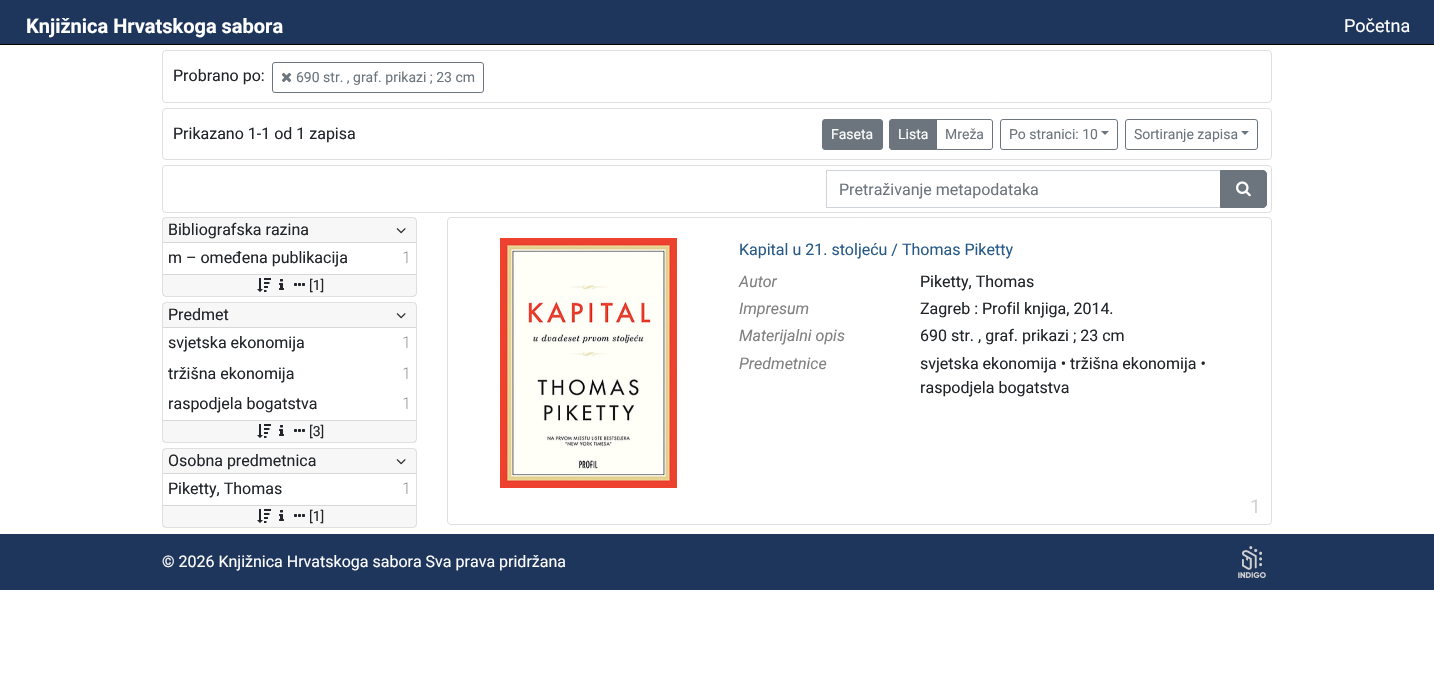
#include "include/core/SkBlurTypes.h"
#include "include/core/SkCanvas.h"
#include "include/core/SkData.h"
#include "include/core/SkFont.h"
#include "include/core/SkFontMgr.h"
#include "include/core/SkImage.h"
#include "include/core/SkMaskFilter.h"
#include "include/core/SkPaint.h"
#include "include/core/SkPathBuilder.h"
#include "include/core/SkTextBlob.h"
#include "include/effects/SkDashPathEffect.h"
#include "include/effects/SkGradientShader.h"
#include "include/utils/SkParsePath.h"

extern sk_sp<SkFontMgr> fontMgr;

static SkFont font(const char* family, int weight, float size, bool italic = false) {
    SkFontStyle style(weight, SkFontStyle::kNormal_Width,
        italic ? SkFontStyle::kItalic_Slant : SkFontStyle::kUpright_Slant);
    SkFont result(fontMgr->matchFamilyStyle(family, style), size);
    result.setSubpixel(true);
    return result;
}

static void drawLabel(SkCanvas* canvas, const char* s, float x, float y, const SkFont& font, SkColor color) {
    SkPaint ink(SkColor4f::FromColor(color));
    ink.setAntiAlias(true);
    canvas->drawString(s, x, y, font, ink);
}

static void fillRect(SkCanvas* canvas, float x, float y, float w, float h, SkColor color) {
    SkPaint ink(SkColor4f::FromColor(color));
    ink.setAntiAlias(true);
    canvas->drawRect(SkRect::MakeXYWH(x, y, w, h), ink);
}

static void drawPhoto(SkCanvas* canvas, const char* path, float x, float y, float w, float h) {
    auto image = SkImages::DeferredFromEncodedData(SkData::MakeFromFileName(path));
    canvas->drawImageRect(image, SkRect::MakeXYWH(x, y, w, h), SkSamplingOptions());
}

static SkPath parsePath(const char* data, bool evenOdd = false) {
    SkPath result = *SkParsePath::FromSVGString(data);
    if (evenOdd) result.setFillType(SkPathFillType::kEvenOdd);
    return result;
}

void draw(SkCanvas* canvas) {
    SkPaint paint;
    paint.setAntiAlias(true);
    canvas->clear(0xFFFFFFFF);
    fillRect(canvas, 0, 0, 1434, 44, 0xFF1F365C);
    fillRect(canvas, 0, 44, 1434, 1, 0xFF000000);
    SkFont font1 = font("Roboto", 700, 20);
    drawLabel(canvas, "Knjižnica Hrvatskoga sabora", 26, 33, font1, 0xFFFFFFFF);
    SkFont font2 = font("Roboto", 400, 18);
    drawLabel(canvas, "Početna", 1344, 32, font2, 0xFFFFFFFF);
    paint.setStroke(true);
    paint.setStrokeWidth(1);
    paint.setColor(0xFFDFDFDF);
    canvas->drawRoundRect(SkRect::MakeXYWH(162.5f, 50.5f, 1109, 52), 3.5f, 3.5f, paint);
    SkFont font3 = font("Roboto", 400, 16);
    drawLabel(canvas, "Probrano po:", 173, 81, font3, 0xFF212529);
    paint.setColor(0xFF6C757D);
    canvas->drawRoundRect(SkRect::MakeXYWH(272.5f, 62.5f, 211, 30), 2.5f, 2.5f, paint);
    drawPhoto(canvas, "assets/img1.png", 281, 72, 11, 11);
    SkFont font4 = font("Roboto", 400, 14);
    drawLabel(canvas, "690 str. , graf. prikazi ; 23 cm", 296, 82, font4, 0xFF6C757D);
    paint.setColor(0xFFDFDFDF);
    canvas->drawRoundRect(SkRect::MakeXYWH(162.5f, 108.5f, 1109, 51), 3.5f, 3.5f, paint);
    drawLabel(canvas, "Prikazano 1-1 od 1 zapisa", 173, 139, font3, 0xFF212529);
    paint.setStroke(false);
    paint.setColor(0xFF6C757D);
    canvas->drawRoundRect(SkRect::MakeXYWH(822.5f, 119.5f, 60, 30), 2.5f, 2.5f, paint);
    paint.setStroke(true);
    canvas->drawRoundRect(SkRect::MakeXYWH(822.5f, 119.5f, 60, 30), 2.5f, 2.5f, paint);
    drawLabel(canvas, "Faseta", 831, 139, font4, 0xFFFFFFFF);
    paint.setStroke(false);
    canvas->drawPath(parsePath("M892 119.5H936.5V149.5H892C890.5 149.5 889.5 148.5 889.5 147V122C889.5 120.5 890.5 119.5 892 119.5Z"), paint);
    paint.setStroke(true);
    canvas->drawPath(parsePath("M892 119.5H936.5V149.5H892C890.5 149.5 889.5 148.5 889.5 147V122C889.5 120.5 890.5 119.5 892 119.5Z"), paint);
    drawLabel(canvas, "Lista", 898, 139, font4, 0xFFFFFFFF);
    canvas->drawPath(parsePath("M936.5 119.5H990C991.5 119.5 992.5 120.5 992.5 122V147C992.5 148.5 991.5 149.5 990 149.5H936.5Z"), paint);
    drawLabel(canvas, "Mreža", 945, 139, font4, 0xFF6C757D);
    canvas->drawRoundRect(SkRect::MakeXYWH(1000.5f, 119.5f, 117, 30), 2.5f, 2.5f, paint);
    drawLabel(canvas, "Po stranici: 10", 1009, 139, font4, 0xFF6C757D);
    paint.setStroke(false);
    canvas->drawPath(parsePath("M1101 131H1109L1105 135Z"), paint);
    paint.setStroke(true);
    canvas->drawRoundRect(SkRect::MakeXYWH(1125.5f, 119.5f, 132, 30), 2.5f, 2.5f, paint);
    drawLabel(canvas, "Sortiranje zapisa", 1134, 139, font4, 0xFF6C757D);
    paint.setStroke(false);
    canvas->drawPath(parsePath("M1241 131H1249L1245 135Z"), paint);
    paint.setStroke(true);
    paint.setColor(0xFFDFDFDF);
    canvas->drawRoundRect(SkRect::MakeXYWH(162.5f, 165.5f, 1109, 47), 3.5f, 3.5f, paint);
    paint.setColor(0xFFCED4DA);
    canvas->drawRect(SkRect::MakeXYWH(826.5f, 170.5f, 394, 37), paint);
    drawLabel(canvas, "Pretraživanje metapodataka", 839, 195, font3, 0xFF6C757D);
    paint.setStroke(false);
    paint.setColor(0xFF6C757D);
    canvas->drawPath(parsePath("M1220.5 170.5H1263C1265 170.5 1266.5 172 1266.5 174V204C1266.5 206 1265 207.5 1263 207.5H1220.5Z"), paint);
    paint.setStroke(true);
    canvas->drawPath(parsePath("M1220.5 170.5H1263C1265 170.5 1266.5 172 1266.5 174V204C1266.5 206 1265 207.5 1263 207.5H1220.5Z"), paint);
    drawPhoto(canvas, "assets/img2.png", 1236, 181, 15, 16);
    paint.setColor(0xFFDFDFDF);
    canvas->drawRoundRect(SkRect::MakeXYWH(162.5f, 217.5f, 254, 79), 3.5f, 3.5f, paint);
    fillRect(canvas, 163, 218, 253, 24, 0x08000000);
    fillRect(canvas, 163, 242, 253, 1, 0xFFD8D8D8);
    drawLabel(canvas, "Bibliografska razina", 168, 235, font3, 0xFF212529);
    drawPhoto(canvas, "assets/img3.png", 396, 228, 10, 6);
    drawLabel(canvas, "m – omeđena publikacija", 168, 263, font3, 0xFF212529);
    SkFont font5 = font("Roboto", 200, 16);
    drawLabel(canvas, "1", 402, 263, font5, 0xFF808080);
    fillRect(canvas, 163, 275, 253, 21, 0x08000000);
    fillRect(canvas, 163, 274, 253, 1, 0xFFD8D8D8);
    drawPhoto(canvas, "assets/img4.png", 257, 278, 14, 14);
    drawPhoto(canvas, "assets/img5.png", 279, 279, 5, 11);
    drawPhoto(canvas, "assets/img6.png", 294, 283, 11, 3);
    drawLabel(canvas, "[1]", 309, 290, font4, 0xFF212529);
    canvas->drawRoundRect(SkRect::MakeXYWH(162.5f, 302.5f, 254, 140), 3.5f, 3.5f, paint);
    fillRect(canvas, 163, 303, 253, 24, 0x08000000);
    fillRect(canvas, 163, 327, 253, 1, 0xFFD8D8D8);
    drawLabel(canvas, "Predmet", 168, 320, font3, 0xFF212529);
    drawPhoto(canvas, "assets/img3.png", 396, 313, 10, 6);
    drawLabel(canvas, "svjetska ekonomija", 168, 348, font3, 0xFF212529);
    drawLabel(canvas, "1", 402, 348, font5, 0xFF808080);
    drawLabel(canvas, "tržišna ekonomija", 168, 379, font3, 0xFF212529);
    drawLabel(canvas, "1", 402, 379, font5, 0xFF808080);
    drawLabel(canvas, "raspodjela bogatstva", 168, 409, font3, 0xFF212529);
    drawLabel(canvas, "1", 402, 409, font5, 0xFF808080);
    fillRect(canvas, 163, 421, 253, 21, 0x08000000);
    fillRect(canvas, 163, 420, 253, 1, 0xFFD8D8D8);
    drawPhoto(canvas, "assets/img4.png", 257, 424, 14, 14);
    drawPhoto(canvas, "assets/img5.png", 279, 425, 5, 11);
    drawPhoto(canvas, "assets/img6.png", 294, 429, 11, 3);
    drawLabel(canvas, "[3]", 309, 436, font4, 0xFF212529);
    canvas->drawRoundRect(SkRect::MakeXYWH(162.5f, 448.5f, 254, 79), 3.5f, 3.5f, paint);
    fillRect(canvas, 163, 449, 253, 24, 0x08000000);
    fillRect(canvas, 163, 473, 253, 1, 0xFFD8D8D8);
    drawLabel(canvas, "Osobna predmetnica", 168, 466, font3, 0xFF212529);
    drawPhoto(canvas, "assets/img3.png", 396, 459, 10, 6);
    drawLabel(canvas, "Piketty, Thomas", 168, 494, font3, 0xFF212529);
    drawLabel(canvas, "1", 402, 494, font5, 0xFF808080);
    fillRect(canvas, 163, 506, 253, 21, 0x08000000);
    fillRect(canvas, 163, 505, 253, 1, 0xFFD8D8D8);
    drawPhoto(canvas, "assets/img4.png", 257, 509, 14, 14);
    drawPhoto(canvas, "assets/img5.png", 279, 510, 5, 11);
    drawPhoto(canvas, "assets/img6.png", 294, 514, 11, 3);
    drawLabel(canvas, "[1]", 309, 521, font4, 0xFF212529);
    canvas->drawRoundRect(SkRect::MakeXYWH(447.5f, 217.5f, 824, 307), 3.5f, 3.5f, paint);
    drawPhoto(canvas, "assets/img7.png", 500, 238, 177, 250);
    drawLabel(canvas, "Kapital u 21. stoljeću / Thomas Piketty", 739, 255, font3, 0xFF275A87);
    SkFont font6 = font("Roboto", 400, 16, true);
    drawLabel(canvas, "Autor", 739, 287, font6, 0xFF808080);
    drawLabel(canvas, "Piketty, Thomas", 920, 287, font3, 0xFF212529);
    drawLabel(canvas, "Impresum", 739, 314, font6, 0xFF808080);
    drawLabel(canvas, "Zagreb : Profil knjiga, 2014.", 920, 314, font3, 0xFF212529);
    drawLabel(canvas, "Materijalni opis", 739, 341, font6, 0xFF808080);
    drawLabel(canvas, "690 str. , graf. prikazi ; 23 cm", 920, 341, font3, 0xFF212529);
    drawLabel(canvas, "Predmetnice", 739, 369, font6, 0xFF808080);
    drawLabel(canvas, "svjetska ekonomija • tržišna ekonomija •", 920, 369, font3, 0xFF212529);
    drawLabel(canvas, "raspodjela bogatstva", 920, 393, font3, 0xFF212529);
    SkFont font7 = font("Roboto", 400, 19);
    drawLabel(canvas, "1", 1250, 513, font7, 0xFFD3D3D3);
    fillRect(canvas, 0, 534, 1434, 56, 0xFF1F365C);
    drawLabel(canvas, "© 2026 Knjižnica Hrvatskoga sabora Sva prava pridržana", 162, 567, font3, 0xFFFFFFFF);
    drawPhoto(canvas, "assets/img8.png", 1238, 546, 28, 32);
}
